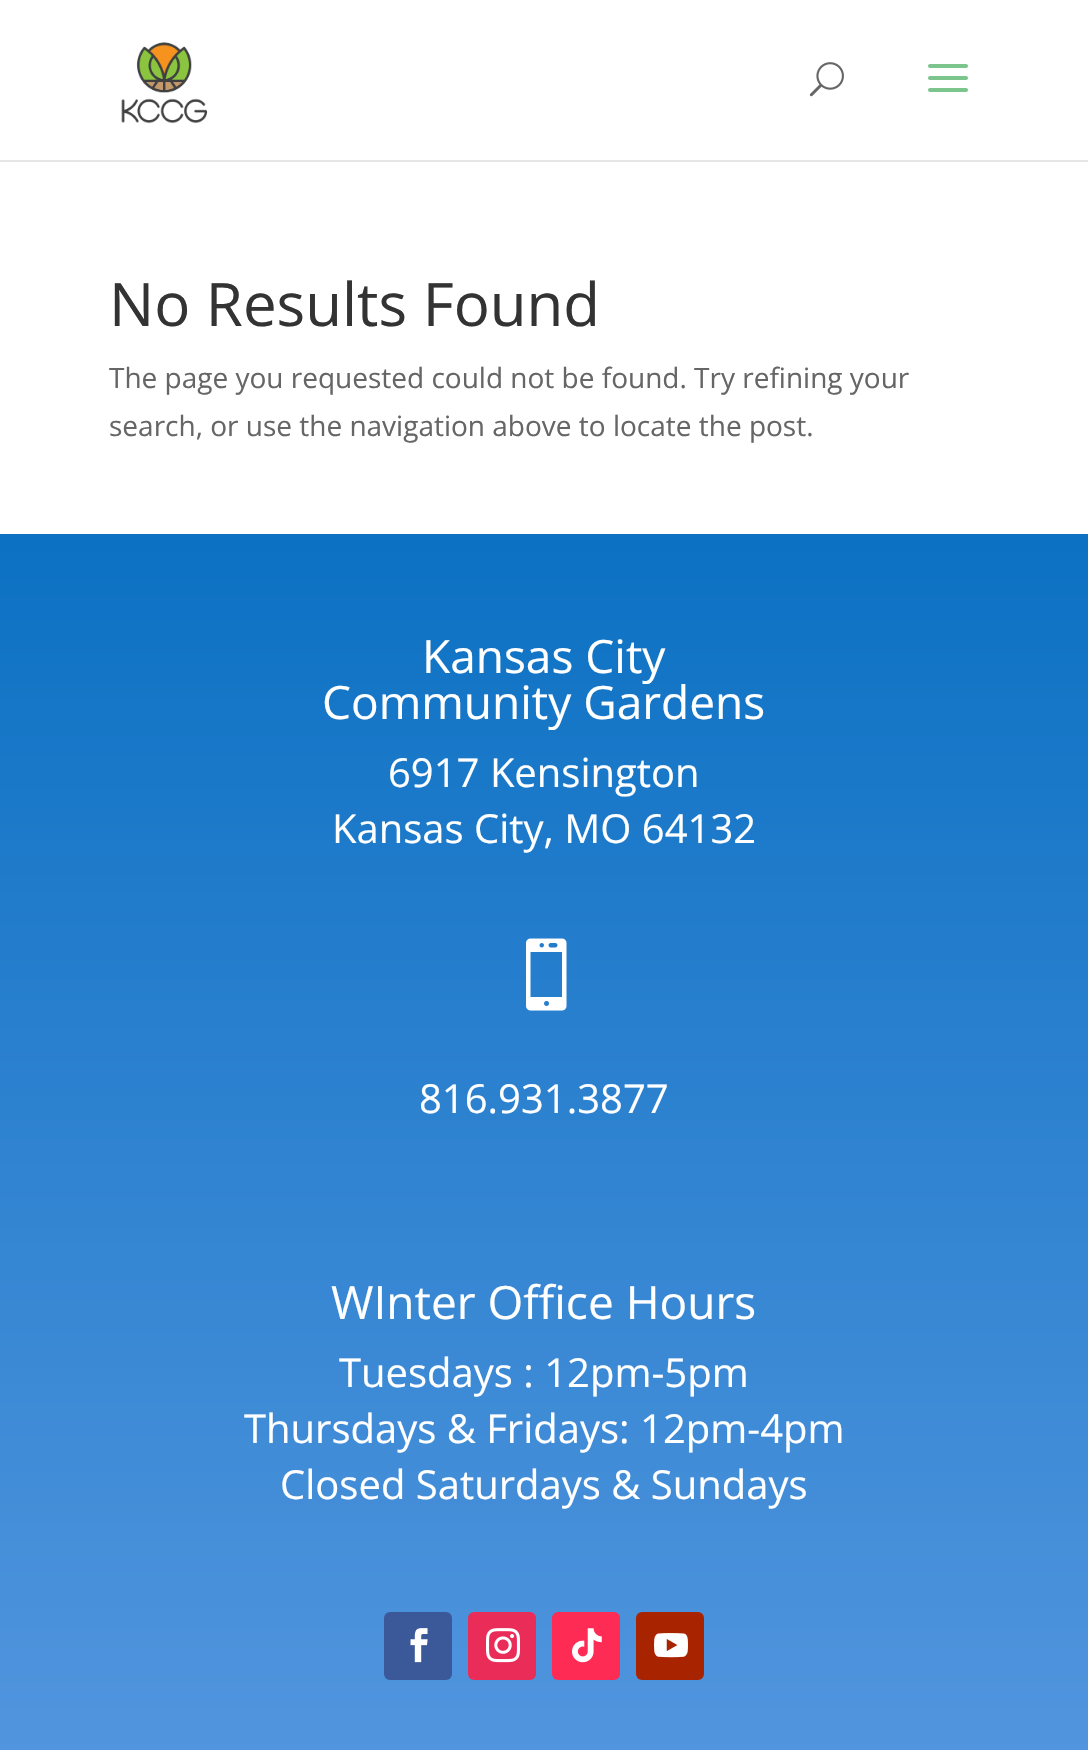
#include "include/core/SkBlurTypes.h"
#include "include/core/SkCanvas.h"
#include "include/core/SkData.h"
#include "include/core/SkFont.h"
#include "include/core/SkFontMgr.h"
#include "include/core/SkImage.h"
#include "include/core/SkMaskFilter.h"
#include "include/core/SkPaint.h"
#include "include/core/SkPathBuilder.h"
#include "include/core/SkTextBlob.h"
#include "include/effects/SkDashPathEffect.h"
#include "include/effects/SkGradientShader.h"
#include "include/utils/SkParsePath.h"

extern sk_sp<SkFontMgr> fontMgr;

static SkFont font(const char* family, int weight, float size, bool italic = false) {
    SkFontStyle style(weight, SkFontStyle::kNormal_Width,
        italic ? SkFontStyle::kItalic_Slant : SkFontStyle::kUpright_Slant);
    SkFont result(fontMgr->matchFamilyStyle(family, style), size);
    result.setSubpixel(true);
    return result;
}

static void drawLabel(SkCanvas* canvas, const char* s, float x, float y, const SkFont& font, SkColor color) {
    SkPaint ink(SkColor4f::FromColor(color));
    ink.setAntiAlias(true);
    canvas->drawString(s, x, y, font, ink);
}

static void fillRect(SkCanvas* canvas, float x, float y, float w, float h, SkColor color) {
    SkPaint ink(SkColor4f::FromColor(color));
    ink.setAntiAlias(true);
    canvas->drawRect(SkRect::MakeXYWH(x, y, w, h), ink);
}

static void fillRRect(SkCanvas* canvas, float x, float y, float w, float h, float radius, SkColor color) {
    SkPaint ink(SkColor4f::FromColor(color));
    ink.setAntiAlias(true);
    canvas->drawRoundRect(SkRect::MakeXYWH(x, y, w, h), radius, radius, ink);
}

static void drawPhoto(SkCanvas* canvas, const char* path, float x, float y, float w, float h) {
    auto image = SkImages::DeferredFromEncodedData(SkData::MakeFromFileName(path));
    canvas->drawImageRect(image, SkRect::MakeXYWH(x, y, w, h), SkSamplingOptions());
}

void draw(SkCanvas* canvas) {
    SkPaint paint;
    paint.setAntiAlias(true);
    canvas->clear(0xFFFFFFFF);
    fillRect(canvas, 0, 160, 1088, 2, 0xFFE6E6E6);
    drawPhoto(canvas, "assets/img1.png", 121, 42, 87, 82);
    drawPhoto(canvas, "assets/img2.png", 809, 62, 35, 35);
    drawPhoto(canvas, "assets/img3.png", 928, 64, 40, 28);
    SkFont font1 = font("Open Sans", 400, 60);
    drawLabel(canvas, "No Results Found", 109, 326, font1, 0xFF333333);
    SkFont font2 = font("Open Sans", 400, 28);
    drawLabel(canvas, "The page you requested could not be found. Try refining your", 109, 388, font2, 0xFF666666);
    drawLabel(canvas, "search, or use the navigation above to locate the post.", 109, 436, font2, 0xFF666666);
    {
        const SkColor colors[] = {0xFFFFFFFF, 0xFF71A5EA, 0xFF0C71C3};
        const float stops[] = {0, 0.03f, 1};
        const SkPoint ends[] = {{544, 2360}, {544, 534}};
        paint.setShader(SkGradientShader::MakeLinear(ends, colors, stops, 3, SkTileMode::kClamp));
        paint.setAlpha(255);
    }
    canvas->drawRect(SkRect::MakeXYWH(0, 534, 1088, 1216), paint);
    SkFont font3 = font("Open Sans", 400, 46);
    drawLabel(canvas, "Kansas City", 422, 673, font3, 0xFFFFFFFF);
    drawLabel(canvas, "Community Gardens", 322, 719, font3, 0xFFFFFFFF);
    SkFont font4 = font("Open Sans", 400, 40);
    drawLabel(canvas, "6917 Kensington", 388, 787, font4, 0xFFFFFFFF);
    drawLabel(canvas, "Kansas City, MO 64132", 332, 843, font4, 0xFFFFFFFF);
    drawPhoto(canvas, "assets/img4.png", 526, 938, 41, 73);
    drawLabel(canvas, "816.931.3877", 419, 1113, font4, 0xFFFFFFFF);
    drawLabel(canvas, "WInter Office Hours", 331, 1319, font3, 0xFFFFFFFF);
    drawLabel(canvas, "Tuesdays : 12pm-5pm", 339, 1387, font4, 0xFFFFFFFF);
    drawLabel(canvas, "Thursdays & Fridays: 12pm-4pm", 244, 1443, font4, 0xFFFFFFFF);
    drawLabel(canvas, "Closed Saturdays & Sundays", 280, 1499, font4, 0xFFFFFFFF);
    fillRRect(canvas, 384, 1612, 68, 68, 6, 0xFF3B5998);
    drawPhoto(canvas, "assets/img5.png", 410, 1628, 18, 35);
    fillRRect(canvas, 468, 1612, 68, 68, 6, 0xFFEA2C59);
    drawPhoto(canvas, "assets/img6.png", 486, 1628, 34, 35);
    fillRRect(canvas, 552, 1612, 68, 68, 6, 0xFFFE2C55);
    drawPhoto(canvas, "assets/img7.png", 572, 1628, 30, 35);
    fillRRect(canvas, 636, 1612, 68, 68, 6, 0xFFA82400);
    drawPhoto(canvas, "assets/img8.png", 654, 1633, 34, 25);
}
